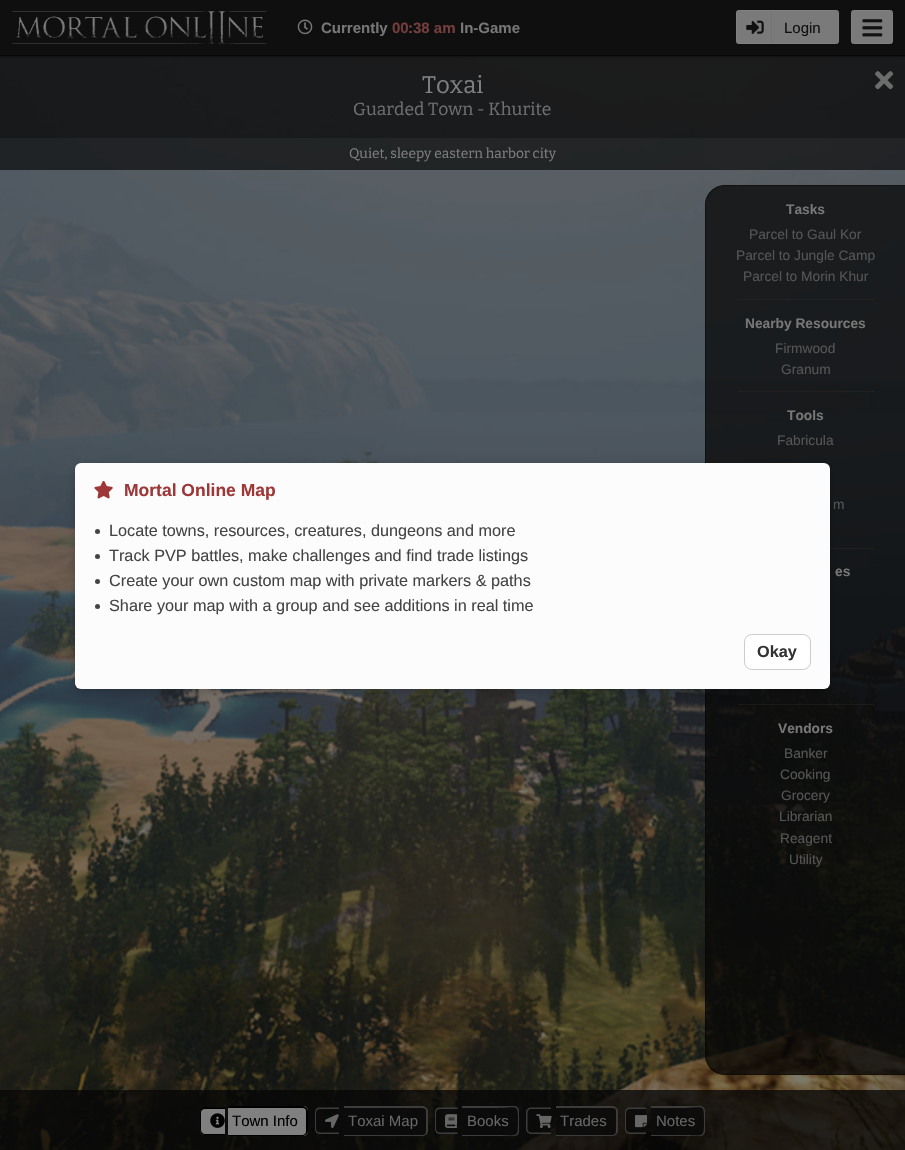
#include "include/core/SkBlurTypes.h"
#include "include/core/SkCanvas.h"
#include "include/core/SkData.h"
#include "include/core/SkFont.h"
#include "include/core/SkFontMgr.h"
#include "include/core/SkImage.h"
#include "include/core/SkMaskFilter.h"
#include "include/core/SkPaint.h"
#include "include/core/SkPathBuilder.h"
#include "include/core/SkTextBlob.h"
#include "include/effects/SkDashPathEffect.h"
#include "include/effects/SkGradientShader.h"
#include "include/utils/SkParsePath.h"

extern sk_sp<SkFontMgr> fontMgr;

static SkFont font(const char* family, int weight, float size, bool italic = false) {
    SkFontStyle style(weight, SkFontStyle::kNormal_Width,
        italic ? SkFontStyle::kItalic_Slant : SkFontStyle::kUpright_Slant);
    SkFont result(fontMgr->matchFamilyStyle(family, style), size);
    result.setSubpixel(true);
    return result;
}

static void drawLabel(SkCanvas* canvas, const char* s, float x, float y, const SkFont& font, SkColor color) {
    SkPaint ink(SkColor4f::FromColor(color));
    ink.setAntiAlias(true);
    canvas->drawString(s, x, y, font, ink);
}

static void fillRect(SkCanvas* canvas, float x, float y, float w, float h, SkColor color) {
    SkPaint ink(SkColor4f::FromColor(color));
    ink.setAntiAlias(true);
    canvas->drawRect(SkRect::MakeXYWH(x, y, w, h), ink);
}

static void fillRRect(SkCanvas* canvas, float x, float y, float w, float h, float radius, SkColor color) {
    SkPaint ink(SkColor4f::FromColor(color));
    ink.setAntiAlias(true);
    canvas->drawRoundRect(SkRect::MakeXYWH(x, y, w, h), radius, radius, ink);
}

static void drawPhoto(SkCanvas* canvas, const char* path, float x, float y, float w, float h) {
    auto image = SkImages::DeferredFromEncodedData(SkData::MakeFromFileName(path));
    canvas->drawImageRect(image, SkRect::MakeXYWH(x, y, w, h), SkSamplingOptions());
}

static SkPath parsePath(const char* data, bool evenOdd = false) {
    SkPath result = *SkParsePath::FromSVGString(data);
    if (evenOdd) result.setFillType(SkPathFillType::kEvenOdd);
    return result;
}

void draw(SkCanvas* canvas) {
    SkPaint paint;
    paint.setAntiAlias(true);
    canvas->clear(0xFFFFFFFF);
    fillRect(canvas, 0, 0, 905, 55, 0xFF0F0F0F);
    drawPhoto(canvas, "assets/img1.png", 12, 11, 255, 33);
    drawPhoto(canvas, "assets/img2.png", 297, 19, 16, 16);
    SkFont font1 = font("Liberation Sans", 700, 15);
    drawLabel(canvas, "Currently", 321, 33, font1, 0xFF777777);
    drawLabel(canvas, "00", 392, 33, font1, 0xFF763D3D);
    drawLabel(canvas, ":", 408, 33, font1, 0xFF7B4949);
    drawLabel(canvas, "38 am", 413, 33, font1, 0xFF763D3D);
    drawLabel(canvas, "In-Game", 460, 33, font1, 0xFF777777);
    paint.setColor(0xFF7A7A7A);
    canvas->drawRoundRect(SkRect::MakeXYWH(736.5f, 10.5f, 102, 33), 2, 2, paint);
    paint.setStroke(true);
    paint.setStrokeWidth(1);
    paint.setColor(0xFF808080);
    canvas->drawRoundRect(SkRect::MakeXYWH(736.5f, 10.5f, 102, 33), 2, 2, paint);
    drawPhoto(canvas, "assets/img3.png", 746, 20, 18, 14);
    fillRect(canvas, 771, 11, 1, 32, 0xFF737576);
    SkFont font2 = font("Liberation Sans", 400, 15);
    drawLabel(canvas, "Login", 784, 33, font2, 0xFF111111);
    paint.setStroke(false);
    paint.setColor(0xFF7A7A7A);
    canvas->drawRoundRect(SkRect::MakeXYWH(851.5f, 10.5f, 41, 33), 2, 2, paint);
    paint.setStroke(true);
    paint.setColor(0xFF808080);
    canvas->drawRoundRect(SkRect::MakeXYWH(851.5f, 10.5f, 41, 33), 2, 2, paint);
    drawPhoto(canvas, "assets/img4.png", 862, 19, 21, 18);
    drawPhoto(canvas, "assets/img6.png", 0, 56, 905, 1094);
    fillRect(canvas, 0, 56, 905, 82, 0xC4050505);
    drawPhoto(canvas, "assets/img5.png", 0, 55, 905, 4);
    SkFont font3 = font("Bitter", 100, 24);
    drawLabel(canvas, "Toxai", 422, 93, font3, 0xFF808080);
    drawPhoto(canvas, "assets/img7.png", 875, 71, 19, 19);
    SkFont font4 = font("Bitter", 100, 17.5f);
    drawLabel(canvas, "Guarded Town - Khurite", 353, 115, font4, 0xFF707070);
    fillRect(canvas, 0, 138, 905, 32, 0xA6050505);
    SkFont font5 = font("Bitter", 100, 13.75f);
    drawLabel(canvas, "Quiet, sleepy eastern harbor city", 349, 158, font5, 0xFF808080);
    paint.setStroke(false);
    paint.setColor(0xBD050505);
    canvas->drawPath(parsePath("M725 185H905V1075H725C714 1075 705 1066 705 1055V205C705 194 714 185 725 185Z"), paint);
    paint.setColor(0x66000000);
    canvas->drawPath(parsePath("M725 185H905V1075H725C714 1075 705 1066 705 1055V205C705 194 714 185 725 185ZM725 186H905V1074H725C715 1074 706 1065 706 1055V205C706 195 715 186 725 186Z", true), paint);
    SkFont font6 = font("Liberation Sans", 700, 13.75f);
    drawLabel(canvas, "Tasks", 786, 214, font6, 0xFF777777);
    SkFont font7 = font("Liberation Sans", 400, 13.75f);
    drawLabel(canvas, "Parcel to Gaul Kor", 749, 239, font7, 0xFF555555);
    drawLabel(canvas, "Parcel to Jungle Camp", 736, 260, font7, 0xFF555555);
    drawLabel(canvas, "Parcel to Morin Khur", 743, 281, font7, 0xFF555555);
    fillRect(canvas, 738, 299, 137, 1, 0xFF232220);
    drawLabel(canvas, "Nearby Resources", 745, 328, font6, 0xFF777777);
    drawLabel(canvas, "Firmwood", 775, 353, font7, 0xFF555555);
    drawLabel(canvas, "Granum", 781, 374, font7, 0xFF555555);
    fillRect(canvas, 738, 391, 137, 1, 0xFF22211F);
    drawLabel(canvas, "Tools", 787, 420, font6, 0xFF777777);
    drawLabel(canvas, "Fabricula", 777, 445, font7, 0xFF555555);
    drawLabel(canvas, "m", 833, 509, font7, 0xFF555555);
    fillRect(canvas, 830, 548, 45, 1, 0x40413627);
    drawLabel(canvas, "es", 835, 576, font6, 0xFF777777);
    fillRect(canvas, 738, 704, 137, 1, 0x40413627);
    drawLabel(canvas, "Vendors", 778, 733, font6, 0xFF777777);
    drawLabel(canvas, "Banker", 784, 758, font7, 0xFF555555);
    drawLabel(canvas, "Cooking", 780, 779, font7, 0xFF555555);
    drawLabel(canvas, "Grocery", 781, 800, font7, 0xFF555555);
    drawLabel(canvas, "Librarian", 779, 821, font7, 0xFF555555);
    drawLabel(canvas, "Reagent", 780, 843, font7, 0xFF555555);
    drawLabel(canvas, "Utility", 789, 864, font7, 0xFF555555);
    fillRect(canvas, 0, 1090, 905, 60, 0xC4050505);
    paint.setColor(0xFF808080);
    canvas->drawPath(parsePath("M205 1108H225V1135H205C202 1135 200 1133 200 1130V1113C200 1110 202 1108 205 1108Z"), paint);
    paint.setColor(0xFF000000);
    canvas->drawPath(parsePath("M205 1107.5H225V1135H205C202 1135 200 1133 200 1130V1112.5C200 1109.5 202 1107.5 205 1107.5ZM205 1109H225V1134H205C203 1134 201 1132 201 1130V1112.5C201 1110.5 203 1109 205 1109Z", true), paint);
    paint.setColor(0xFF808080);
    canvas->drawPath(parsePath("M228 1106H303C306 1106 308 1108 308 1111V1131C308 1134 306 1136 303 1136H228Z"), paint);
    paint.setColor(0xFF000000);
    canvas->drawPath(parsePath("M228 1106H302C305 1106 308 1108 308 1111V1131C308 1134 305 1136 302 1136H228ZM228 1108H302C305 1108 306 1109 306 1111V1131C306 1133 305 1135 302 1135H228Z", true), paint);
    drawPhoto(canvas, "assets/img8.png", 210, 1113, 15, 15);
    drawLabel(canvas, "Town Info", 232, 1126, font2, 0xFF000000);
    paint.setColor(0xFF3C3C3C);
    canvas->drawPath(parsePath("M320 1107.5H339V1134H320C317 1134 315 1131.5 315 1129V1112.5C315 1109.5 317 1107.5 320 1107.5ZM320 1109H339V1132.5H320C318 1132.5 316 1131 316 1129V1112.5C316 1110.5 318 1109 320 1109Z", true), paint);
    paint.setColor(0xD90A0A0A);
    canvas->drawPath(parsePath("M344 1106H423C426 1106 428 1108 428 1111V1131C428 1134 426 1136 423 1136H344Z"), paint);
    paint.setColor(0xFF3C3C3C);
    canvas->drawPath(parsePath("M344 1106H422C425 1106 428 1108 428 1111V1131C428 1134 425 1136 422 1136H344ZM344 1108H422C425 1108 426 1109 426 1111V1131C426 1133 425 1135 422 1135H344Z", true), paint);
    drawPhoto(canvas, "assets/img9.png", 325, 1114, 14, 14);
    drawLabel(canvas, "Toxai Map", 348, 1126, font2, 0xFF666666);
    paint.setColor(0xD90A0A0A);
    canvas->drawPath(parsePath("M440 1108H458V1134H440C437 1134 435 1132 435 1129V1113C435 1110 437 1108 440 1108Z"), paint);
    paint.setColor(0xFF3C3C3C);
    canvas->drawPath(parsePath("M440 1107.5H457.5V1134H440C437 1134 435 1131.5 435 1129V1112.5C435 1109.5 437 1107.5 440 1107.5ZM440 1109H457.5V1132.5H440C438 1132.5 436 1131 436 1129V1112.5C436 1110.5 438 1109 440 1109Z", true), paint);
    paint.setColor(0xD90A0A0A);
    canvas->drawPath(parsePath("M463 1106H514C517 1106 519 1108 519 1111V1131C519 1134 517 1136 514 1136H463Z"), paint);
    paint.setColor(0xFF3C3C3C);
    canvas->drawPath(parsePath("M462 1106H514C517 1106 519 1108 519 1111V1131C519 1134 517 1136 514 1136H462ZM462 1108H497C518 1108 518 1103 518 1121C518 1139 518 1135 497 1135H462Z", true), paint);
    drawPhoto(canvas, "assets/img10.png", 445, 1114, 13, 14);
    drawLabel(canvas, "Books", 467, 1126, font2, 0xFF666666);
    paint.setColor(0xD90A0A0A);
    canvas->drawPath(parsePath("M531 1108H551V1134H531C528 1134 526 1132 526 1129V1113C526 1110 528 1108 531 1108Z"), paint);
    paint.setColor(0xFF3C3C3C);
    canvas->drawPath(parsePath("M531 1107.5H551V1134H531C528.5 1134 526 1131.5 526 1129V1112.5C526 1109.5 528.5 1107.5 531 1107.5ZM531 1109H551V1132.5H531C529 1132.5 527.5 1131 527.5 1129V1112.5C527.5 1110.5 529 1109 531 1109Z", true), paint);
    paint.setColor(0xD90A0A0A);
    canvas->drawPath(parsePath("M556 1106H613C616 1106 618 1108 618 1111V1131C618 1134 616 1136 613 1136H556Z"), paint);
    paint.setColor(0xFF3C3C3C);
    canvas->drawPath(parsePath("M556 1106H612C615 1106 618 1108 618 1111V1131C618 1134 615 1136 612 1136H556ZM556 1108H612C615 1108 616 1109 616 1111V1131C616 1133 615 1135 612 1135H556Z", true), paint);
    drawPhoto(canvas, "assets/img11.png", 536, 1114, 16, 14);
    drawLabel(canvas, "Trades", 560, 1126, font2, 0xFF666666);
    paint.setColor(0xD90A0A0A);
    canvas->drawPath(parsePath("M630 1108H646V1134H630C627 1134 625 1132 625 1129V1113C625 1110 627 1108 630 1108Z"), paint);
    paint.setColor(0xFF3C3C3C);
    canvas->drawPath(parsePath("M630 1107.5H646V1134H630C627 1134 625 1131.5 625 1129V1112.5C625 1109.5 627 1107.5 630 1107.5ZM630 1109H646V1132.5H630C628 1132.5 626 1131 626 1129V1112.5C626 1110.5 628 1109 630 1109Z", true), paint);
    paint.setColor(0xD90A0A0A);
    canvas->drawPath(parsePath("M651 1106H700C703 1106 705 1108 705 1111V1131C705 1134 703 1136 700 1136H651Z"), paint);
    paint.setColor(0xFF3C3C3C);
    canvas->drawPath(parsePath("M651 1106H700C703 1106 705 1108 705 1111V1131C705 1134 703 1136 700 1136H651ZM651 1108H684C704 1108 704 1103 704 1121C704 1139 704 1135 684 1135H651Z", true), paint);
    drawPhoto(canvas, "assets/img12.png", 635, 1115, 13, 13);
    drawLabel(canvas, "Notes", 656, 1126, font2, 0xFF666666);
    paint.setColor(0x33000000);
    paint.setMaskFilter(SkMaskFilter::MakeBlur(kNormal_SkBlurStyle, 4));
    canvas->drawRoundRect(SkRect::MakeXYWH(75, 465, 755, 226), 6, 6, paint);
    paint.setMaskFilter(nullptr);
    fillRRect(canvas, 75, 463, 755, 226, 6, 0xFFFCFCFC);
    drawPhoto(canvas, "assets/img13.png", 94, 481, 19, 18);
    SkFont font8 = font("Liberation Sans", 700, 17.5f);
    drawLabel(canvas, "Mortal Online Map", 124, 496, font8, 0xFF9E3737);
    paint.setColor(0xFF444444);
    canvas->drawCircle(97.5f, 531.5f, 2.5f, paint);
    SkFont font9 = font("Liberation Sans", 400, 16.25f);
    drawLabel(canvas, "Locate towns, resources, creatures, dungeons and more", 109, 536, font9, 0xFF444444);
    canvas->drawCircle(97.5f, 556.5f, 2.5f, paint);
    drawLabel(canvas, "Track PVP battles, make challenges and find trade listings", 109, 561, font9, 0xFF444444);
    canvas->drawCircle(97.5f, 581.5f, 2.5f, paint);
    drawLabel(canvas, "Create your own custom map with private markers & paths", 109, 586, font9, 0xFF444444);
    canvas->drawCircle(97.5f, 606.5f, 2.5f, paint);
    drawLabel(canvas, "Share your map with a group and see additions in real time", 109, 611, font9, 0xFF444444);
    paint.setColor(0xFFFFFFFF);
    canvas->drawRoundRect(SkRect::MakeXYWH(744.5f, 634.5f, 66, 35), 7.5f, 7.5f, paint);
    paint.setStroke(true);
    paint.setColor(0xFFCCCCCC);
    canvas->drawRoundRect(SkRect::MakeXYWH(744.5f, 634.5f, 66, 35), 7.5f, 7.5f, paint);
    SkFont font10 = font("Liberation Sans", 700, 16.25f);
    drawLabel(canvas, "Okay", 757, 657, font10, 0xFF333333);
}
